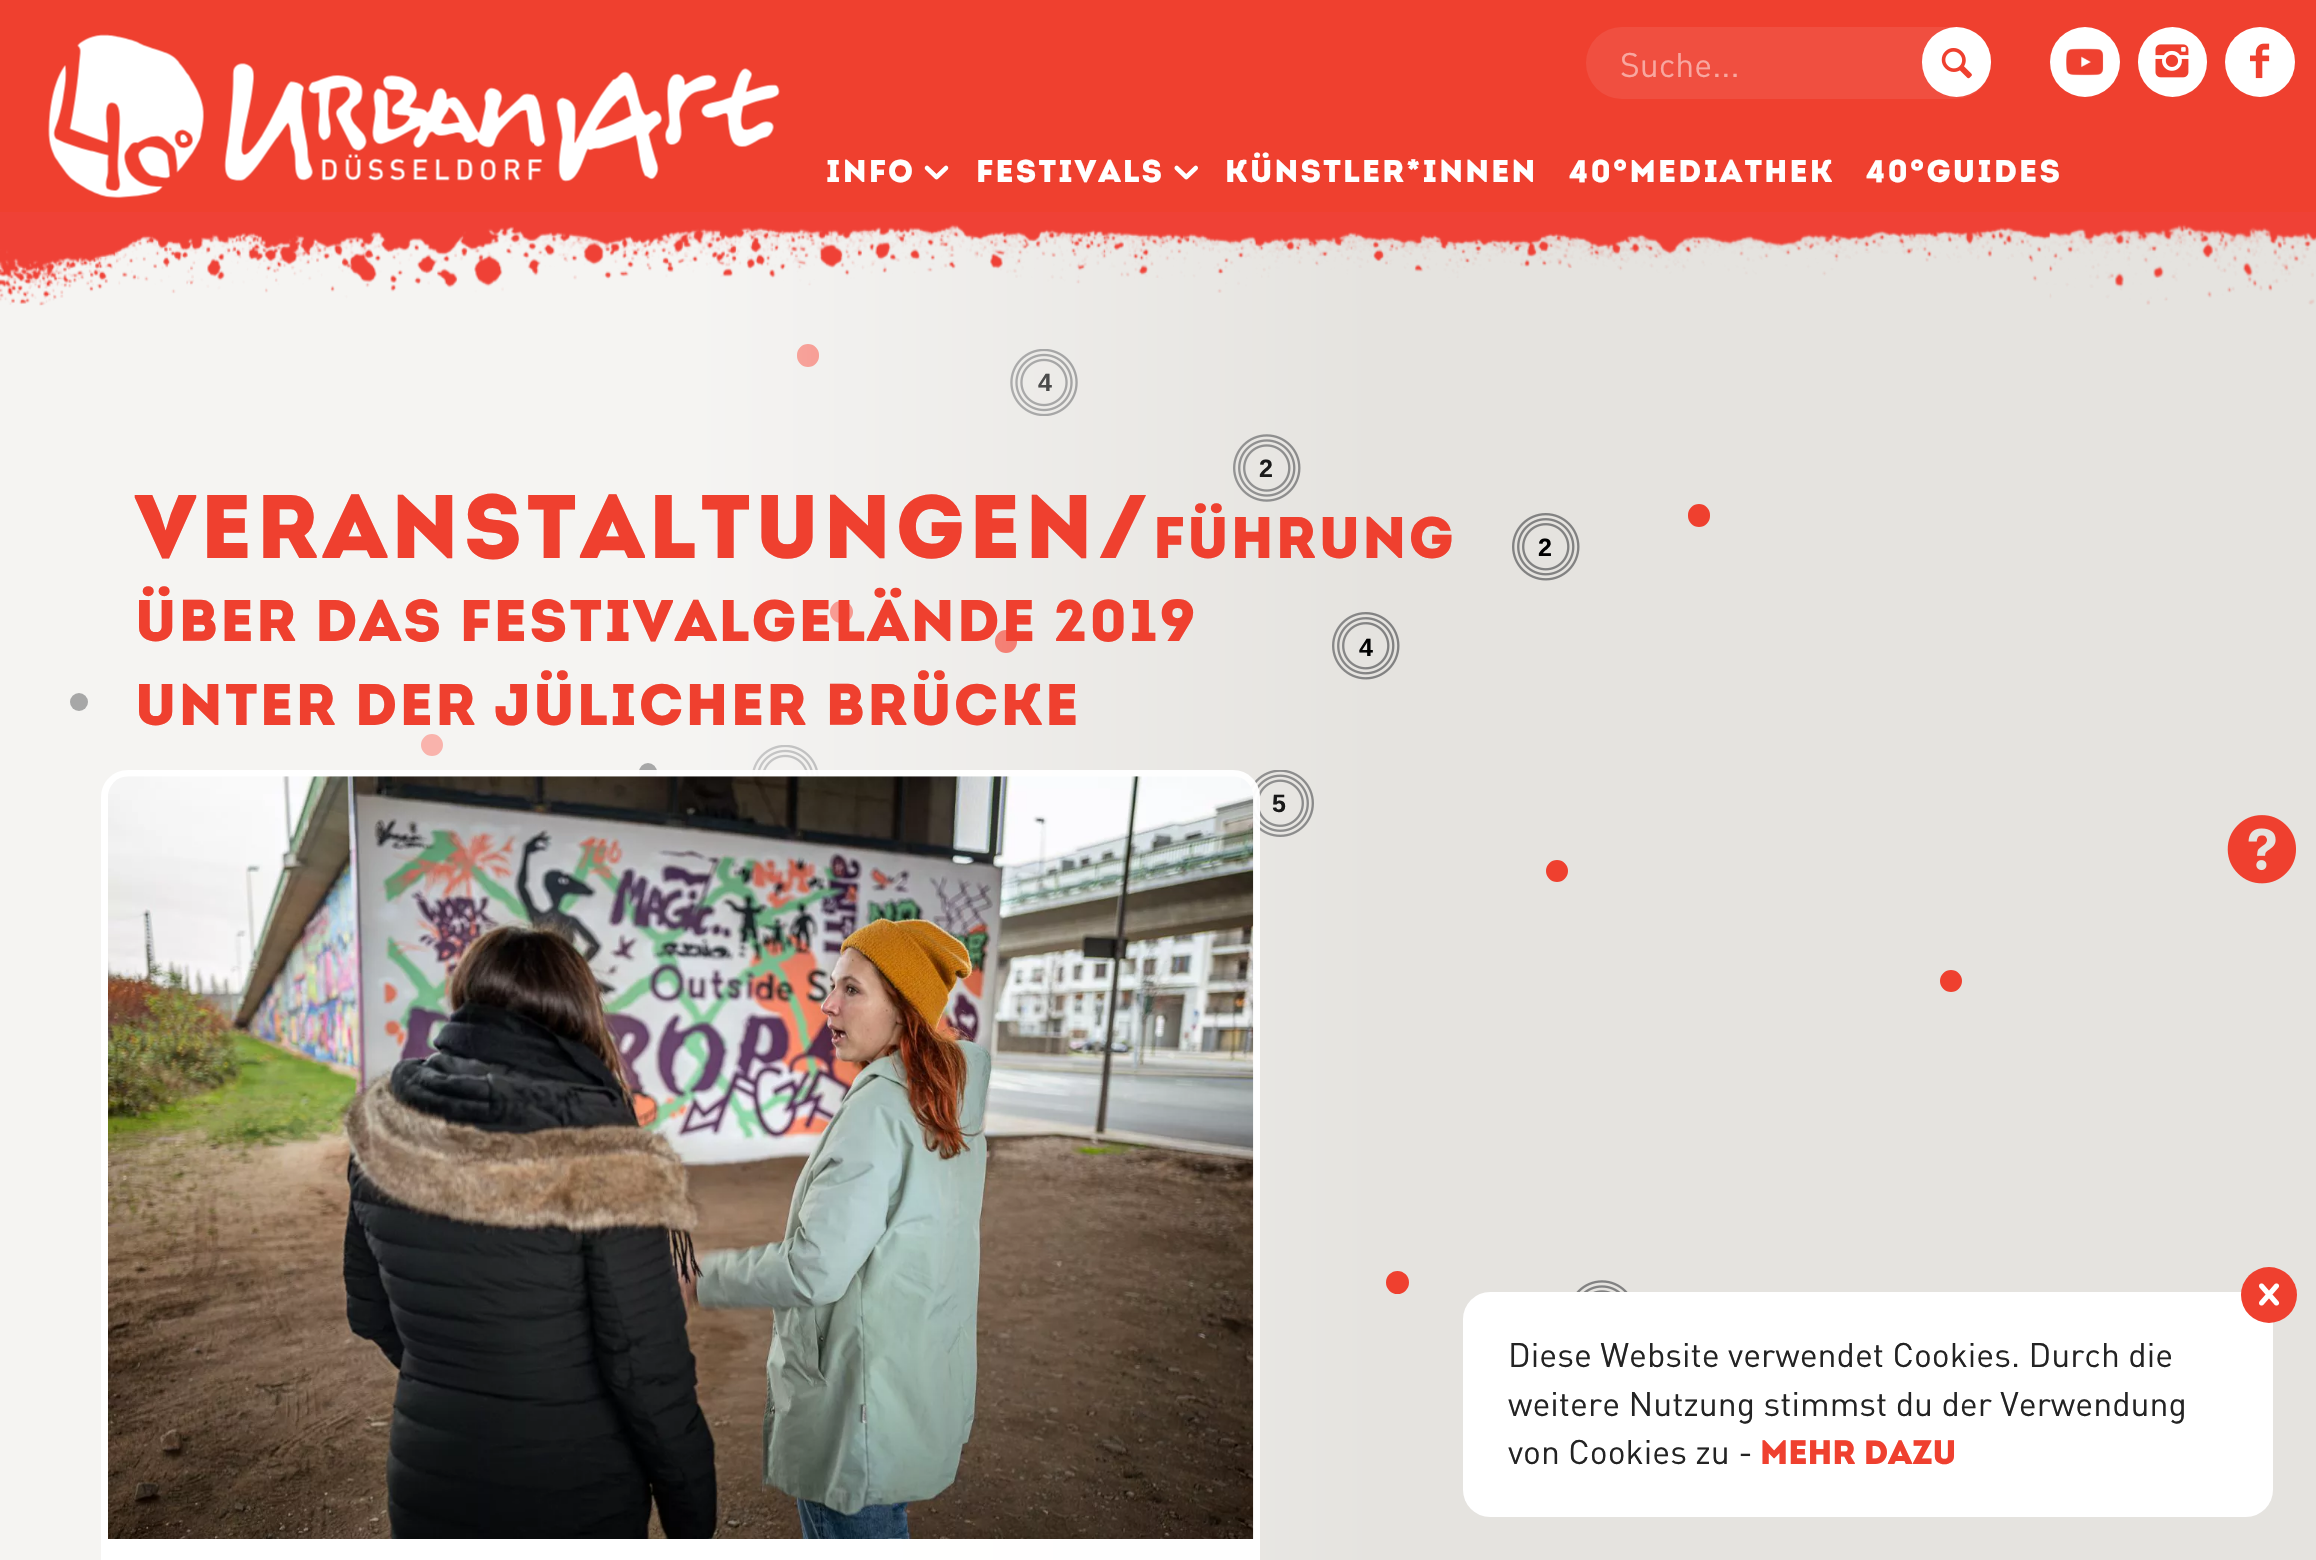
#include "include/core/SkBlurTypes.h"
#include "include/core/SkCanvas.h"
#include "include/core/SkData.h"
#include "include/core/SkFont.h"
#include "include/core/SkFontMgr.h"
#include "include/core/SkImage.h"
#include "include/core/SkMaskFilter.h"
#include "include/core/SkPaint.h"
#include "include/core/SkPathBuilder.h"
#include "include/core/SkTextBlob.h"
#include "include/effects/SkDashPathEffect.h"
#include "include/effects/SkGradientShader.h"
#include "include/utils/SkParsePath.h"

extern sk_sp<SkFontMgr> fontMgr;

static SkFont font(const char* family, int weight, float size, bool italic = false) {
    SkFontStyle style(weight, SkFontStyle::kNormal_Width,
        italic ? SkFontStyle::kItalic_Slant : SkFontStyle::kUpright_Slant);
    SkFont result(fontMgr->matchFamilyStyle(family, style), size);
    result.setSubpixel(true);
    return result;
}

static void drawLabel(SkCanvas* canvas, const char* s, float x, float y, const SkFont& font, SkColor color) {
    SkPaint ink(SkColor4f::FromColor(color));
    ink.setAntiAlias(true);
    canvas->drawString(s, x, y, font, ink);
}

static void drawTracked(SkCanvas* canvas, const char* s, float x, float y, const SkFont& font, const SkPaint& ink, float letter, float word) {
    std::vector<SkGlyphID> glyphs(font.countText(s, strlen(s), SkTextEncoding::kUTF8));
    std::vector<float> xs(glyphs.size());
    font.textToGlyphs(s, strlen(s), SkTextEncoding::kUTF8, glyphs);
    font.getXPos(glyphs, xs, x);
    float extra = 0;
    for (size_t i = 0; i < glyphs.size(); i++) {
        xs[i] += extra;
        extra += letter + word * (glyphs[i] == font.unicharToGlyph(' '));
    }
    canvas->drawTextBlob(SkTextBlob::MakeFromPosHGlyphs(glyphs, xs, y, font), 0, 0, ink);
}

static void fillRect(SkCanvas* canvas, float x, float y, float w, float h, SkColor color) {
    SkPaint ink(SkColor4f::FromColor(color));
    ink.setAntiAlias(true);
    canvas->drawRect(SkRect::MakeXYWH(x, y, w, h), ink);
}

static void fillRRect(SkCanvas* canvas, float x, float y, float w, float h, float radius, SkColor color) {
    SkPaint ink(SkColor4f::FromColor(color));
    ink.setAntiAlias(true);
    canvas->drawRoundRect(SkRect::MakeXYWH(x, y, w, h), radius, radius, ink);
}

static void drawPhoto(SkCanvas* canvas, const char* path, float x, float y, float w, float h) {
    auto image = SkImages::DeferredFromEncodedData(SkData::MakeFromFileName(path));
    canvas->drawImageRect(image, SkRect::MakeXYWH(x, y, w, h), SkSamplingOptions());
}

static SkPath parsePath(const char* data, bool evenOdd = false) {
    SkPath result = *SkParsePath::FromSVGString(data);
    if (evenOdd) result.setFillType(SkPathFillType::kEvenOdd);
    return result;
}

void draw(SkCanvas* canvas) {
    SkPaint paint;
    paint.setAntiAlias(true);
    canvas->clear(0xFFE5E3DF);
    paint.setColor(0xFFEF402F);
    canvas->drawRoundRect(SkRect::MakeXYWH(798, 345, 20, 21), 10, 10, paint);
    paint.setStroke(true);
    paint.setStrokeWidth(2);
    canvas->drawRoundRect(SkRect::MakeXYWH(798, 345, 20, 21), 10, 10, paint);
    paint.setStroke(false);
    canvas->drawRoundRect(SkRect::MakeXYWH(831, 602, 21, 20), 10, 10, paint);
    paint.setStroke(true);
    canvas->drawRoundRect(SkRect::MakeXYWH(831, 602, 21, 20), 10, 10, paint);
    paint.setStroke(false);
    canvas->drawRoundRect(SkRect::MakeXYWH(996, 631, 20, 21), 10, 10, paint);
    paint.setStroke(true);
    canvas->drawRoundRect(SkRect::MakeXYWH(996, 631, 20, 21), 10, 10, paint);
    paint.setStroke(false);
    paint.setColor(0xFF232323);
    canvas->drawCircle(79, 702, 9, paint);
    paint.setColor(0xFFEF402F);
    canvas->drawCircle(432, 745, 10, paint);
    paint.setStroke(true);
    canvas->drawCircle(432, 745, 10, paint);
    paint.setStroke(false);
    paint.setColor(0xFF232323);
    canvas->drawCircle(648, 772, 9, paint);
    drawPhoto(canvas, "assets/img9.png", 1010, 349, 68, 67);
    SkFont font1 = font("Liberation Sans", 700, 25);
    drawLabel(canvas, "4", 1038, 391, font1, 0xFF000000);
    drawPhoto(canvas, "assets/img10.png", 1233, 434, 68, 68);
    drawLabel(canvas, "2", 1259, 477, font1, 0xFF000000);
    drawPhoto(canvas, "assets/img11.png", 1332, 612, 68, 68);
    drawLabel(canvas, "4", 1359, 656, font1, 0xFF000000);
    drawPhoto(canvas, "assets/img12.png", 752, 745, 67, 32);
    drawPhoto(canvas, "assets/img13.png", 1250, 770, 64, 67);
    drawLabel(canvas, "5", 1272, 812, font1, 0xFF000000);
    {
        const SkColor colors[] = {0x99FFFFFF, 0x99FFFFFF, 0x00FFFFFF, 0x00FFFFFF};
        const float stops[] = {0, 0.3f, 0.6f, 1};
        const SkPoint ends[] = {{0, 797}, {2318, 796}};
        paint.setShader(SkGradientShader::MakeLinear(ends, colors, stops, 4, SkTileMode::kClamp));
        paint.setAlpha(255);
    }
    canvas->drawRect(SkRect::MakeXYWH(0, 224, 1366, 1336), paint);
    drawPhoto(canvas, "assets/img1.png", 0, 212, 2316, 94);
    fillRect(canvas, 0, 0, 2316, 212, 0xFFEF402F);
    drawPhoto(canvas, "assets/img2.png", 48, 34, 732, 164);
    fillRRect(canvas, 1586, 27, 405, 72, 36, 0xFFF04F40);
    SkFont font2 = font("DIN", 400, 33.75f);
    drawLabel(canvas, "Suche...", 1620, 77, font2, 0xFFF8A7A0);
    fillRRect(canvas, 1922, 27, 69, 70, 34.5f, 0xFFFFFFFF);
    drawPhoto(canvas, "assets/img3.png", 1941, 48, 31, 31);
    paint.setShader(nullptr);
    paint.setColor(0xFFFFFFFF);
    canvas->drawCircle(2085, 62, 35, paint);
    drawPhoto(canvas, "assets/img4.png", 2066, 48, 38, 28);
    fillRRect(canvas, 2138, 27, 69, 70, 34.5f, 0xFFFFFFFF);
    drawPhoto(canvas, "assets/img5.png", 2155, 44, 34, 34);
    canvas->drawCircle(2260, 62, 35, paint);
    drawPhoto(canvas, "assets/img6.png", 2250, 43, 20, 36);
    SkFont font3 = font("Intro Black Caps", 900, 31.5f);
    drawTracked(canvas, "Info", 826, 182, font3, paint, 2.25f, 0);
    drawPhoto(canvas, "assets/img7.png", 924, 165, 25, 15);
    drawTracked(canvas, "Festivals", 976, 182, font3, paint, 2.25f, 0);
    drawPhoto(canvas, "assets/img8.png", 1174, 165, 24, 15);
    drawTracked(canvas, "Künstler*Innen", 1225, 182, font3, paint, 2.25f, 0);
    drawTracked(canvas, "40°Mediathek", 1569, 182, font3, paint, 2.25f, 0);
    drawTracked(canvas, "40°Guides", 1866, 182, font3, paint, 2.25f, 0);
    paint.setColor(0xFFEF402F);
    canvas->drawRoundRect(SkRect::MakeXYWH(1689, 505, 20, 21), 10, 10, paint);
    paint.setStroke(true);
    canvas->drawRoundRect(SkRect::MakeXYWH(1689, 505, 20, 21), 10, 10, paint);
    paint.setStroke(false);
    canvas->drawCircle(1557, 871, 10, paint);
    paint.setStroke(true);
    canvas->drawCircle(1557, 871, 10, paint);
    paint.setStroke(false);
    canvas->drawCircle(1951, 981, 10, paint);
    paint.setStroke(true);
    canvas->drawCircle(1951, 981, 10, paint);
    paint.setStroke(false);
    canvas->drawCircle(1397.5f, 1282.5f, 10.5f, paint);
    paint.setStroke(true);
    canvas->drawCircle(1397.5f, 1282.5f, 10.5f, paint);
    drawPhoto(canvas, "assets/img11.png", 1512, 513, 68, 68);
    drawLabel(canvas, "2", 1538, 556, font1, 0xFF000000);
    drawPhoto(canvas, "assets/img14.png", 1576, 1280, 52, 12);
    drawPhoto(canvas, "assets/img15.png", 2227, 815, 69, 69);
    SkFont font4 = font("Intro Black Caps", 900, 90);
    paint.setStroke(false);
    drawTracked(canvas, "Veranstaltungen/", 135, 558, font4, paint, 4.5f, 0);
    SkFont font5 = font("Intro Black Caps", 900, 58.5f);
    drawTracked(canvas, "Führung", 1153, 558, font5, paint, 2.25f, 0);
    drawTracked(canvas, "über das Festivalgelände 2019", 135, 641, font5, paint, 2.25f, 0);
    drawTracked(canvas, "unter der Jülicher Brücke", 135, 725, font5, paint, 2.25f, 0);
    paint.setColor(0xF2FFFFFF);
    canvas->drawPath(parsePath("M128 770H1233C1248 770 1260 782 1260 797V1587H101V797C101 782 113 770 128 770Z"), paint);
    drawPhoto(canvas, "assets/img16.png", 108, 776, 1146, 763);
    fillRRect(canvas, 1463, 1292, 810, 225, 27, 0xFFFFFFFF);
    paint.setColor(0xFFEF402F);
    canvas->drawCircle(2269, 1295, 28, paint);
    drawPhoto(canvas, "assets/img17.png", 2259, 1283, 21, 23);
    drawLabel(canvas, "Diese Website verwendet Cookies. Durch die", 1508, 1367, font2, 0xFF232323);
    drawLabel(canvas, "weitere Nutzung stimmst du der Verwendung", 1508, 1416, font2, 0xFF232323);
    drawLabel(canvas, "von Cookies zu -", 1508, 1464, font2, 0xFF232323);
    SkFont font6 = font("Intro Black Caps", 900, 33.75f);
    drawLabel(canvas, "mehr dazu", 1760, 1464, font6, 0xFFEF402F);
}
